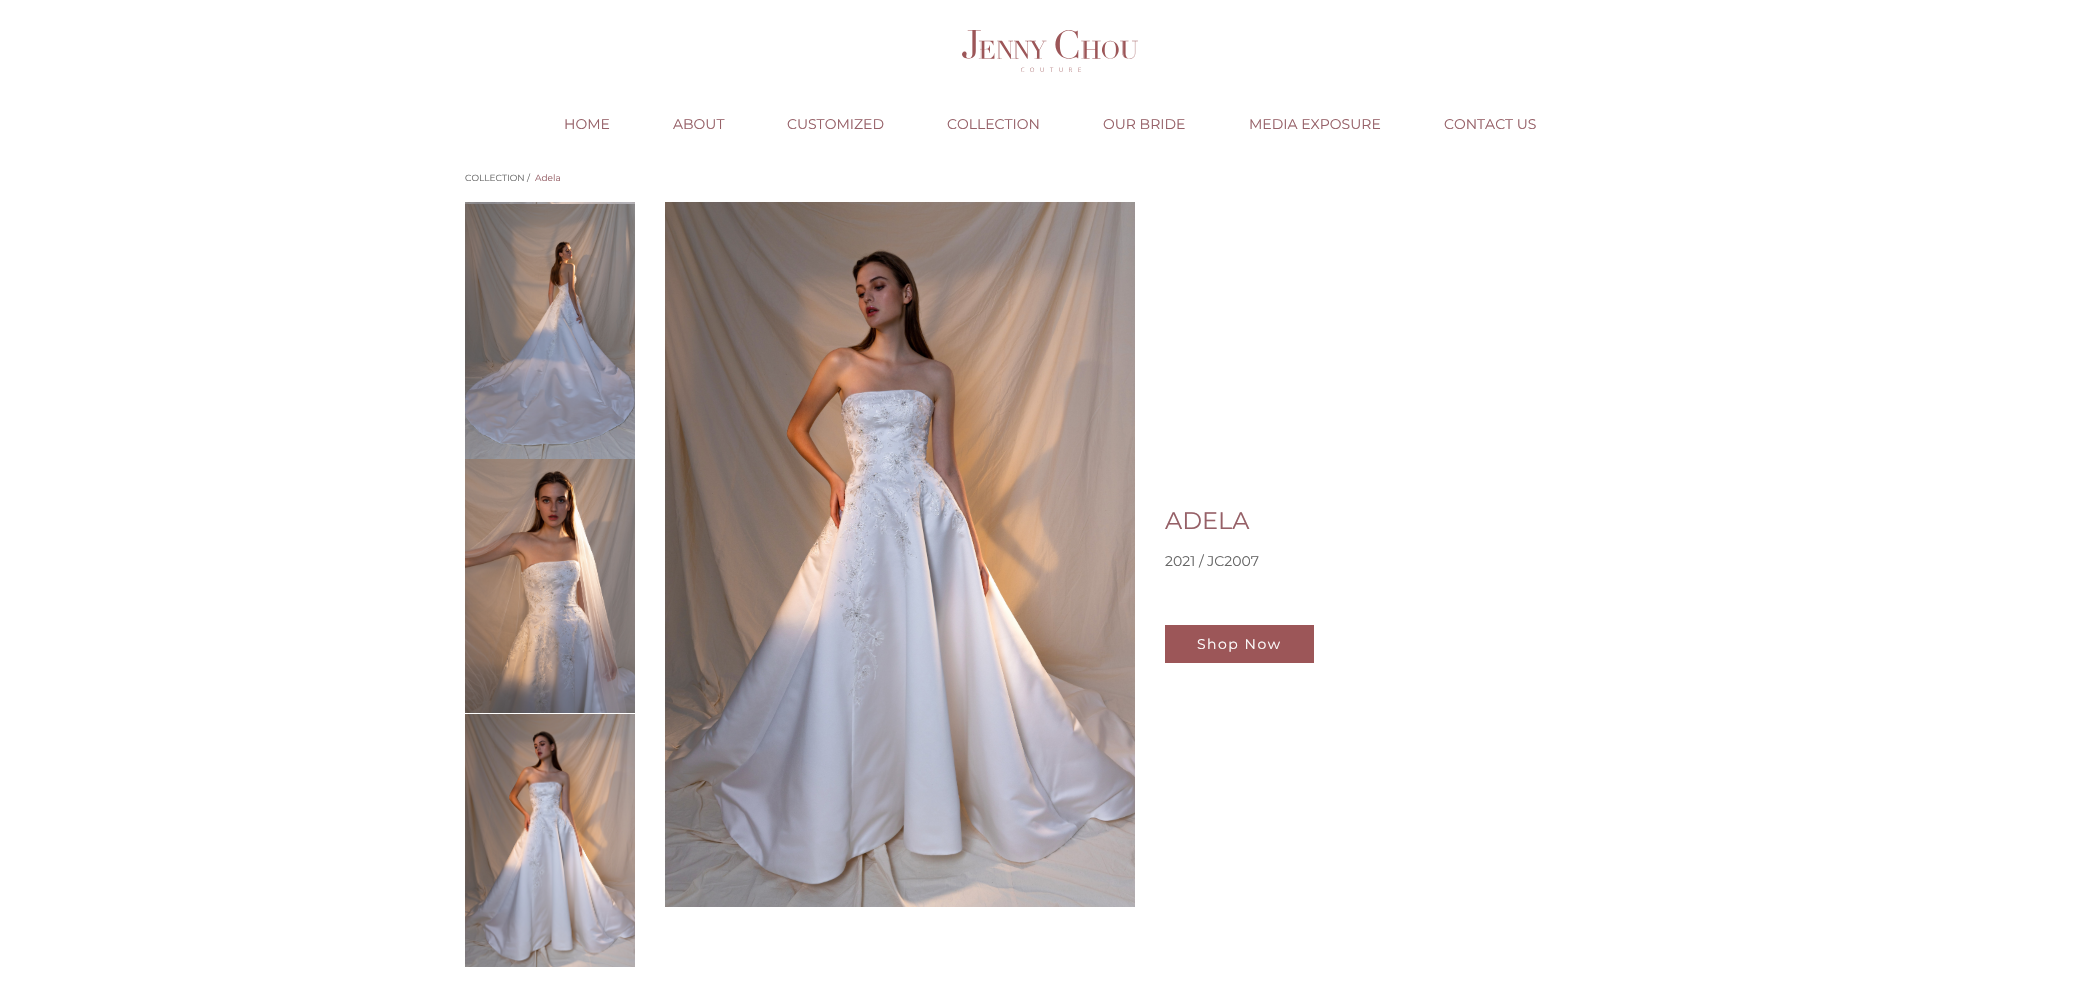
#include "include/core/SkBlurTypes.h"
#include "include/core/SkCanvas.h"
#include "include/core/SkData.h"
#include "include/core/SkFont.h"
#include "include/core/SkFontMgr.h"
#include "include/core/SkImage.h"
#include "include/core/SkMaskFilter.h"
#include "include/core/SkPaint.h"
#include "include/core/SkPathBuilder.h"
#include "include/core/SkTextBlob.h"
#include "include/effects/SkDashPathEffect.h"
#include "include/effects/SkGradientShader.h"
#include "include/utils/SkParsePath.h"

extern sk_sp<SkFontMgr> fontMgr;

static SkFont font(const char* family, int weight, float size, bool italic = false) {
    SkFontStyle style(weight, SkFontStyle::kNormal_Width,
        italic ? SkFontStyle::kItalic_Slant : SkFontStyle::kUpright_Slant);
    SkFont result(fontMgr->matchFamilyStyle(family, style), size);
    result.setSubpixel(true);
    return result;
}

static void drawLabel(SkCanvas* canvas, const char* s, float x, float y, const SkFont& font, SkColor color) {
    SkPaint ink(SkColor4f::FromColor(color));
    ink.setAntiAlias(true);
    canvas->drawString(s, x, y, font, ink);
}

static void drawTracked(SkCanvas* canvas, const char* s, float x, float y, const SkFont& font, const SkPaint& ink, float letter, float word) {
    std::vector<SkGlyphID> glyphs(font.countText(s, strlen(s), SkTextEncoding::kUTF8));
    std::vector<float> xs(glyphs.size());
    font.textToGlyphs(s, strlen(s), SkTextEncoding::kUTF8, glyphs);
    font.getXPos(glyphs, xs, x);
    float extra = 0;
    for (size_t i = 0; i < glyphs.size(); i++) {
        xs[i] += extra;
        extra += letter + word * (glyphs[i] == font.unicharToGlyph(' '));
    }
    canvas->drawTextBlob(SkTextBlob::MakeFromPosHGlyphs(glyphs, xs, y, font), 0, 0, ink);
}

static void fillRect(SkCanvas* canvas, float x, float y, float w, float h, SkColor color) {
    SkPaint ink(SkColor4f::FromColor(color));
    ink.setAntiAlias(true);
    canvas->drawRect(SkRect::MakeXYWH(x, y, w, h), ink);
}

static void drawPhoto(SkCanvas* canvas, const char* path, float x, float y, float w, float h) {
    auto image = SkImages::DeferredFromEncodedData(SkData::MakeFromFileName(path));
    canvas->drawImageRect(image, SkRect::MakeXYWH(x, y, w, h), SkSamplingOptions());
}

void draw(SkCanvas* canvas) {
    SkPaint paint;
    paint.setAntiAlias(true);
    canvas->clear(0xFFFFFFFF);
    drawPhoto(canvas, "assets/img1.png", 962, 30, 176, 42);
    SkFont font1 = font("Montserrat", 400, 14);
    drawLabel(canvas, "HOME", 564, 129, font1, 0xFF966067);
    drawLabel(canvas, "ABOUT", 673, 129, font1, 0xFF966067);
    drawLabel(canvas, "CUSTOMIZED", 787, 129, font1, 0xFF966067);
    drawLabel(canvas, "COLLECTION", 947, 129, font1, 0xFF966067);
    drawLabel(canvas, "OUR BRIDE", 1103, 129, font1, 0xFF966067);
    drawLabel(canvas, "MEDIA EXPOSURE", 1249, 129, font1, 0xFF966067);
    drawLabel(canvas, "CONTACT US", 1444, 129, font1, 0xFF966067);
    SkFont font2 = font("Montserrat", 400, 9);
    drawLabel(canvas, "COLLECTION /", 465, 181, font2, 0xFF666666);
    drawLabel(canvas, "Adela", 535, 181, font2, 0xFF966067);
    drawPhoto(canvas, "assets/img2.png", 465, 202, 170, 2);
    drawPhoto(canvas, "assets/img3.png", 465, 204, 170, 255);
    drawPhoto(canvas, "assets/img4.png", 465, 459, 170, 254);
    drawPhoto(canvas, "assets/img5.png", 465, 714, 170, 253);
    drawPhoto(canvas, "assets/img6.png", 665, 202, 470, 705);
    SkFont font3 = font("Montserrat", 400, 24);
    drawLabel(canvas, "ADELA", 1165, 529, font3, 0xFF966067);
    drawLabel(canvas, "2021 / JC2007", 1165, 566, font1, 0xFF666666);
    fillRect(canvas, 1165, 625, 149, 38, 0xFF9C5658);
    paint.setColor(0xFFFFFFFF);
    drawTracked(canvas, "Shop Now", 1197, 649, font1, paint, 1.5f, 0);
}
